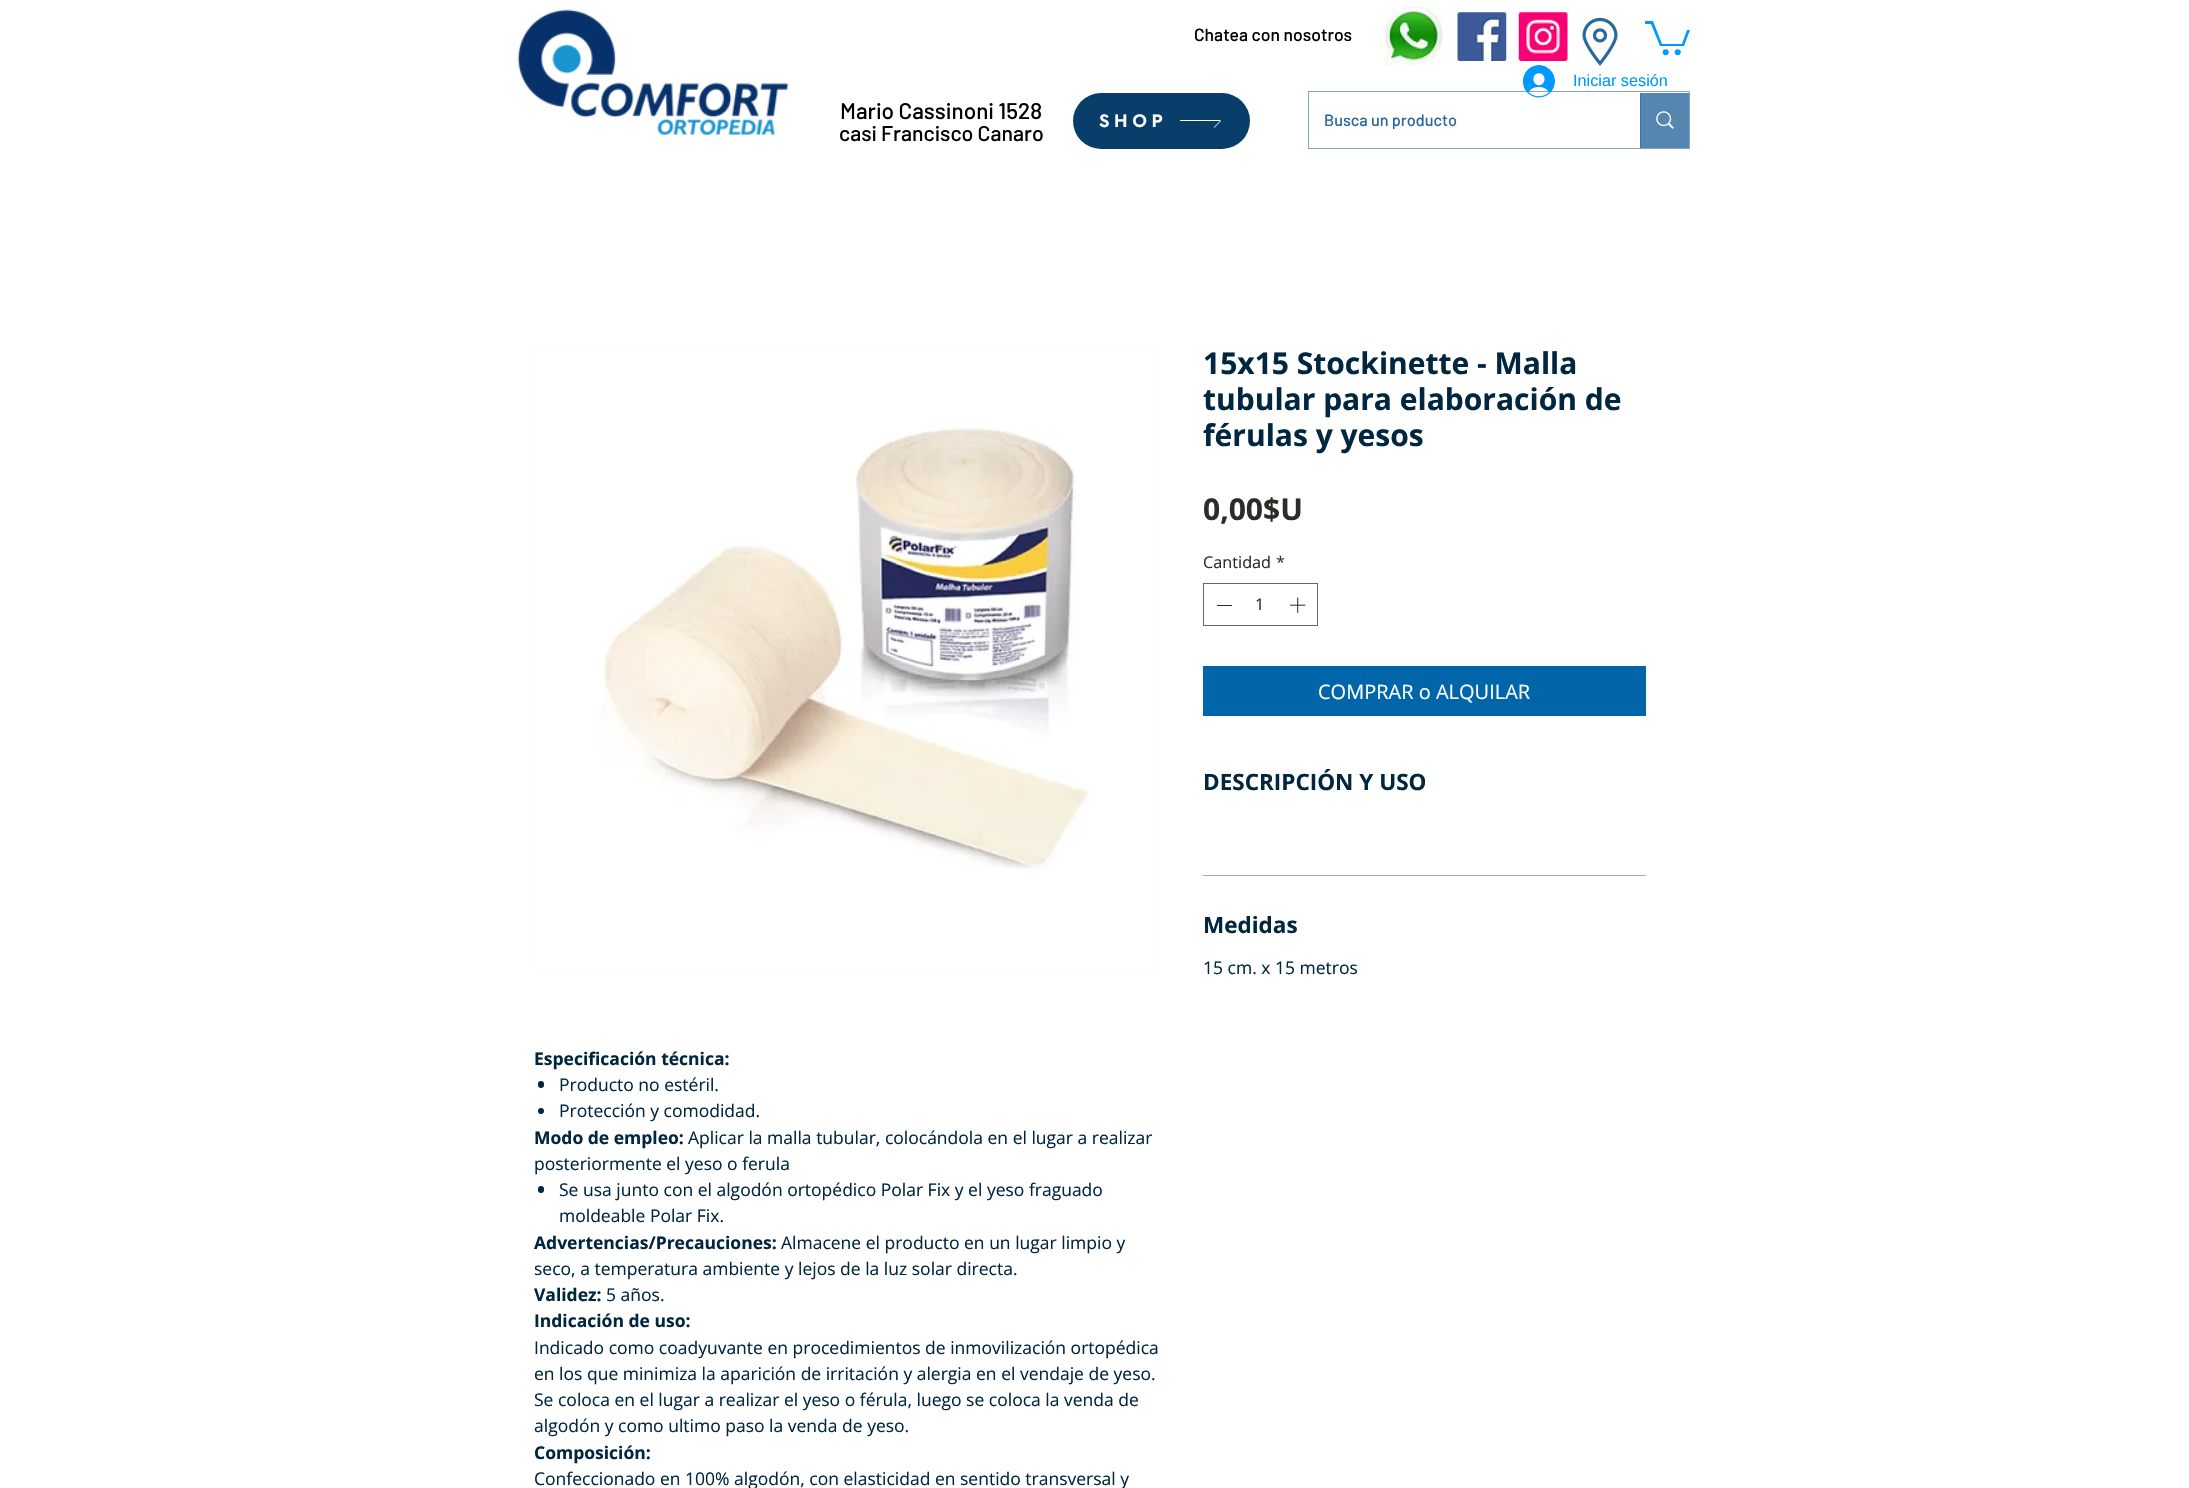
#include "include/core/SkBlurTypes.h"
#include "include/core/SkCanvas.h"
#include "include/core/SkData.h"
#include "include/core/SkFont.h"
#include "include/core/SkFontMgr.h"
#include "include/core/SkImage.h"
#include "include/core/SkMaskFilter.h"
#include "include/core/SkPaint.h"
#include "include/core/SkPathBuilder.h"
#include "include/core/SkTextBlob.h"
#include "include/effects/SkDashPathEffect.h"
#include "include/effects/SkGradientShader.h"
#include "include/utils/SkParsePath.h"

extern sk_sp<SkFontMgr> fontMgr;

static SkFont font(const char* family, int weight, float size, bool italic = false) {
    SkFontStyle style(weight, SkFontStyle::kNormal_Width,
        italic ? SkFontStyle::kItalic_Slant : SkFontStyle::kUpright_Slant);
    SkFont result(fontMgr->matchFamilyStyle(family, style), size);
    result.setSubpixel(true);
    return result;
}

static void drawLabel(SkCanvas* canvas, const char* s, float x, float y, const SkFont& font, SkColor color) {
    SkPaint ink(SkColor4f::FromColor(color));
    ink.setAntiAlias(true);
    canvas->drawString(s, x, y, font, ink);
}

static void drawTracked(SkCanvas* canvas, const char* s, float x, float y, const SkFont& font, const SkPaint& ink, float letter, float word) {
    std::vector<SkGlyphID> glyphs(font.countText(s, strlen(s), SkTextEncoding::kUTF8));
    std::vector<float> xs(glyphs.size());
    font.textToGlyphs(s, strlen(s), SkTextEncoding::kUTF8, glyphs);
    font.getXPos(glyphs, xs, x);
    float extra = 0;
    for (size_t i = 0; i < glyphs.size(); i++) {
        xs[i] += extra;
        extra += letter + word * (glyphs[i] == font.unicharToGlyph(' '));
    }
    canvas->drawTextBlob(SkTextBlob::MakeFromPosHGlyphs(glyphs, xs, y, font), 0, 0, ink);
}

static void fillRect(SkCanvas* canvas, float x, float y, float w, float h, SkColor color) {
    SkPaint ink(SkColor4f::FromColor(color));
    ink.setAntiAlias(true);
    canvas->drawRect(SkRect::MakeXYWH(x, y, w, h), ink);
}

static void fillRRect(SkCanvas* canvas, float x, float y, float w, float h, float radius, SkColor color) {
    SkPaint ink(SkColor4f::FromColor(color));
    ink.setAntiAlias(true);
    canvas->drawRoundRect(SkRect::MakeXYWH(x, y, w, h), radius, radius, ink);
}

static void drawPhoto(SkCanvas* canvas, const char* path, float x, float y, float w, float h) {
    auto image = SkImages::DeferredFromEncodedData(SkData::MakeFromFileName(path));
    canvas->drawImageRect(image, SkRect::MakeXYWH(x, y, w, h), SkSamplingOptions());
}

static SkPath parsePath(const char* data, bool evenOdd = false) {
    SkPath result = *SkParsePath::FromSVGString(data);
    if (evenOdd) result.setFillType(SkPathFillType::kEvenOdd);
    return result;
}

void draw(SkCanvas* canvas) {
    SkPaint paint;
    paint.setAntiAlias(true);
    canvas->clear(0xFFFFFFFF);
    drawPhoto(canvas, "assets/img1.png", 517, 9, 272, 127);
    SkFont font1 = font("Barlow", 500, 17.5f);
    drawLabel(canvas, "Chatea con nosotros", 1194, 41, font1, 0xFF000000);
    drawPhoto(canvas, "assets/img2.png", 1383, 6, 60, 60);
    drawPhoto(canvas, "assets/img3.png", 1457, 12, 50, 49);
    drawPhoto(canvas, "assets/img4.png", 1518, 12, 50, 49);
    drawPhoto(canvas, "assets/img5.png", 1582, 17, 36, 49);
    paint.setColor(0xFF0099FF);
    canvas->drawPath(parsePath("M1690 30L1684 46H1660L1651 24H1645V21H1653L1662 44H1682L1687 30"), paint);
    canvas->drawCircle(1677.7f, 52.3f, 3, paint);
    canvas->drawCircle(1665.7f, 52.3f, 3, paint);
    paint.setStroke(true);
    paint.setStrokeWidth(1);
    paint.setColor(0xFF80A4C4);
    canvas->drawRect(SkRect::MakeXYWH(1308.5f, 91.5f, 381, 57), paint);
    drawPhoto(canvas, "assets/img6.png", 1523, 65, 32, 33);
    SkFont font2 = font("Liberation Sans", 400, 16.25f);
    drawLabel(canvas, "Iniciar sesión", 1573, 86, font2, 0xFF0099FF);
    SkFont font3 = font("Barlow", 500, 22.5f);
    drawLabel(canvas, "Mario Cassinoni 1528", 840, 119, font3, 0xFF000000);
    SkFont font4 = font("Barlow", 500, 21.25f);
    drawLabel(canvas, "casi Francisco Canaro", 839, 141, font4, 0xFF000000);
    fillRRect(canvas, 1073, 93, 177, 56, 28, 0xFF093D6A);
    SkFont font5 = font("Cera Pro", 700, 19);
    paint.setStroke(false);
    paint.setColor(0xFFFFFFFF);
    drawTracked(canvas, "SHOP", 1099, 127, font5, paint, 4.5f, 0);
    canvas->drawPath(parsePath("M1214 114L1220 120H1180V121H1220L1214 127V128L1221 121Z"), paint);
    SkFont font6 = font("Barlow", 500, 16.25f);
    drawLabel(canvas, "Busca un producto", 1324, 126, font6, 0xFF2B689C);
    fillRect(canvas, 1641, 93, 48, 55, 0xFF5586B0);
    fillRect(canvas, 1640, 93, 1, 55, 0xFF3C74A4);
    drawPhoto(canvas, "assets/img7.png", 1656, 111, 18, 18);
    SkFont font7 = font("Open Sans", 700, 30);
    drawLabel(canvas, "15x15 Stockinette - Malla", 1203, 374, font7, 0xFF002640);
    drawLabel(canvas, "tubular para elaboración de", 1203, 410, font7, 0xFF002640);
    drawLabel(canvas, "férulas y yesos", 1203, 446, font7, 0xFF002640);
    drawLabel(canvas, "0,00$U", 1203, 520, font7, 0xFF2E2C26);
    SkFont font8 = font("Open Sans", 400, 16.25f);
    drawLabel(canvas, "Cantidad", 1203, 568, font8, 0xFF2E2C26);
    drawLabel(canvas, "*", 1276, 568, font8, 0xFF2E2C26);
    paint.setStroke(true);
    paint.setColor(0xFF666666);
    canvas->drawRect(SkRect::MakeXYWH(1203.5f, 583.5f, 114, 42), paint);
    fillRect(canvas, 1217, 605, 15, 1, 0xFF2E2C26);
    drawLabel(canvas, "1", 1255, 610, font8, 0xFF2E2C26);
    drawPhoto(canvas, "assets/img8.png", 1290, 597, 16, 16);
    fillRect(canvas, 1203, 666, 443, 50, 0xFF0065A9);
    SkFont font9 = font("Open Sans", 400, 20);
    drawLabel(canvas, "COMPRAR o ALQUILAR", 1318, 699, font9, 0xFFFFFFFF);
    fillRect(canvas, 1203, 875, 443, 1, 0xFFAAA8A8);
    SkFont font10 = font("Open Sans", 700, 22.5f);
    drawLabel(canvas, "DESCRIPCIÓN Y USO", 1203, 790, font10, 0xFF002640);
    drawLabel(canvas, "Medidas", 1203, 933, font10, 0xFF002640);
    SkFont font11 = font("Open Sans", 400, 17.5f);
    drawLabel(canvas, "15 cm. x 15 metros", 1203, 974, font11, 0xFF002640);
    paint.setColor(0xFFFAFCFC);
    canvas->drawRect(SkRect::MakeXYWH(534.5f, 345.5f, 624, 624), paint);
    drawPhoto(canvas, "assets/img9.png", 601, 426, 488, 443);
    SkFont font12 = font("Open Sans", 700, 17.5f);
    drawLabel(canvas, "Especificación técnica:", 534, 1065, font12, 0xFF002640);
    fillRRect(canvas, 538, 1081, 6, 7, 3, 0xFF002640);
    drawLabel(canvas, "Producto no estéril.", 559, 1091, font11, 0xFF002640);
    paint.setStroke(false);
    paint.setColor(0xFF002640);
    canvas->drawCircle(541, 1111, 3, paint);
    drawLabel(canvas, "Protección y comodidad.", 559, 1117, font11, 0xFF002640);
    drawLabel(canvas, "Modo de empleo:", 534, 1144, font12, 0xFF002640);
    drawLabel(canvas, "Aplicar la malla tubular, colocándola en el lugar a realizar", 688, 1144, font11, 0xFF002640);
    drawLabel(canvas, "posteriormente el yeso o ferula", 534, 1170, font11, 0xFF002640);
    fillRRect(canvas, 538, 1186, 6, 7, 3, 0xFF002640);
    drawLabel(canvas, "Se usa junto con el algodón ortopédico Polar Fix y el yeso fraguado", 559, 1196, font11, 0xFF002640);
    drawLabel(canvas, "moldeable Polar Fix.", 559, 1222, font11, 0xFF002640);
    drawLabel(canvas, "Advertencias/Precauciones:", 534, 1249, font12, 0xFF002640);
    drawLabel(canvas, "Almacene el producto en un lugar limpio y", 781, 1249, font11, 0xFF002640);
    drawLabel(canvas, "seco, a temperatura ambiente y lejos de la luz solar directa.", 534, 1275, font11, 0xFF002640);
    drawLabel(canvas, "Validez:", 534, 1301, font12, 0xFF002640);
    drawLabel(canvas, "5 años.", 606, 1301, font11, 0xFF002640);
    drawLabel(canvas, "Indicación de uso:", 534, 1327, font12, 0xFF002640);
    drawLabel(canvas, "Indicado como coadyuvante en procedimientos de inmovilización ortopédica", 534, 1354, font11, 0xFF002640);
    drawLabel(canvas, "en los que minimiza la aparición de irritación y alergia en el vendaje de yeso.", 534, 1380, font11, 0xFF002640);
    drawLabel(canvas, "Se coloca en el lugar a realizar el yeso o férula, luego se coloca la venda de", 534, 1406, font11, 0xFF002640);
    drawLabel(canvas, "algodón y como ultimo paso la venda de yeso.", 534, 1432, font11, 0xFF002640);
    drawLabel(canvas, "Composición:", 534, 1459, font12, 0xFF002640);
    drawLabel(canvas, "Confeccionado en 100% algodón, con elasticidad en sentido transversal y", 534, 1485, font11, 0xFF002640);
}
